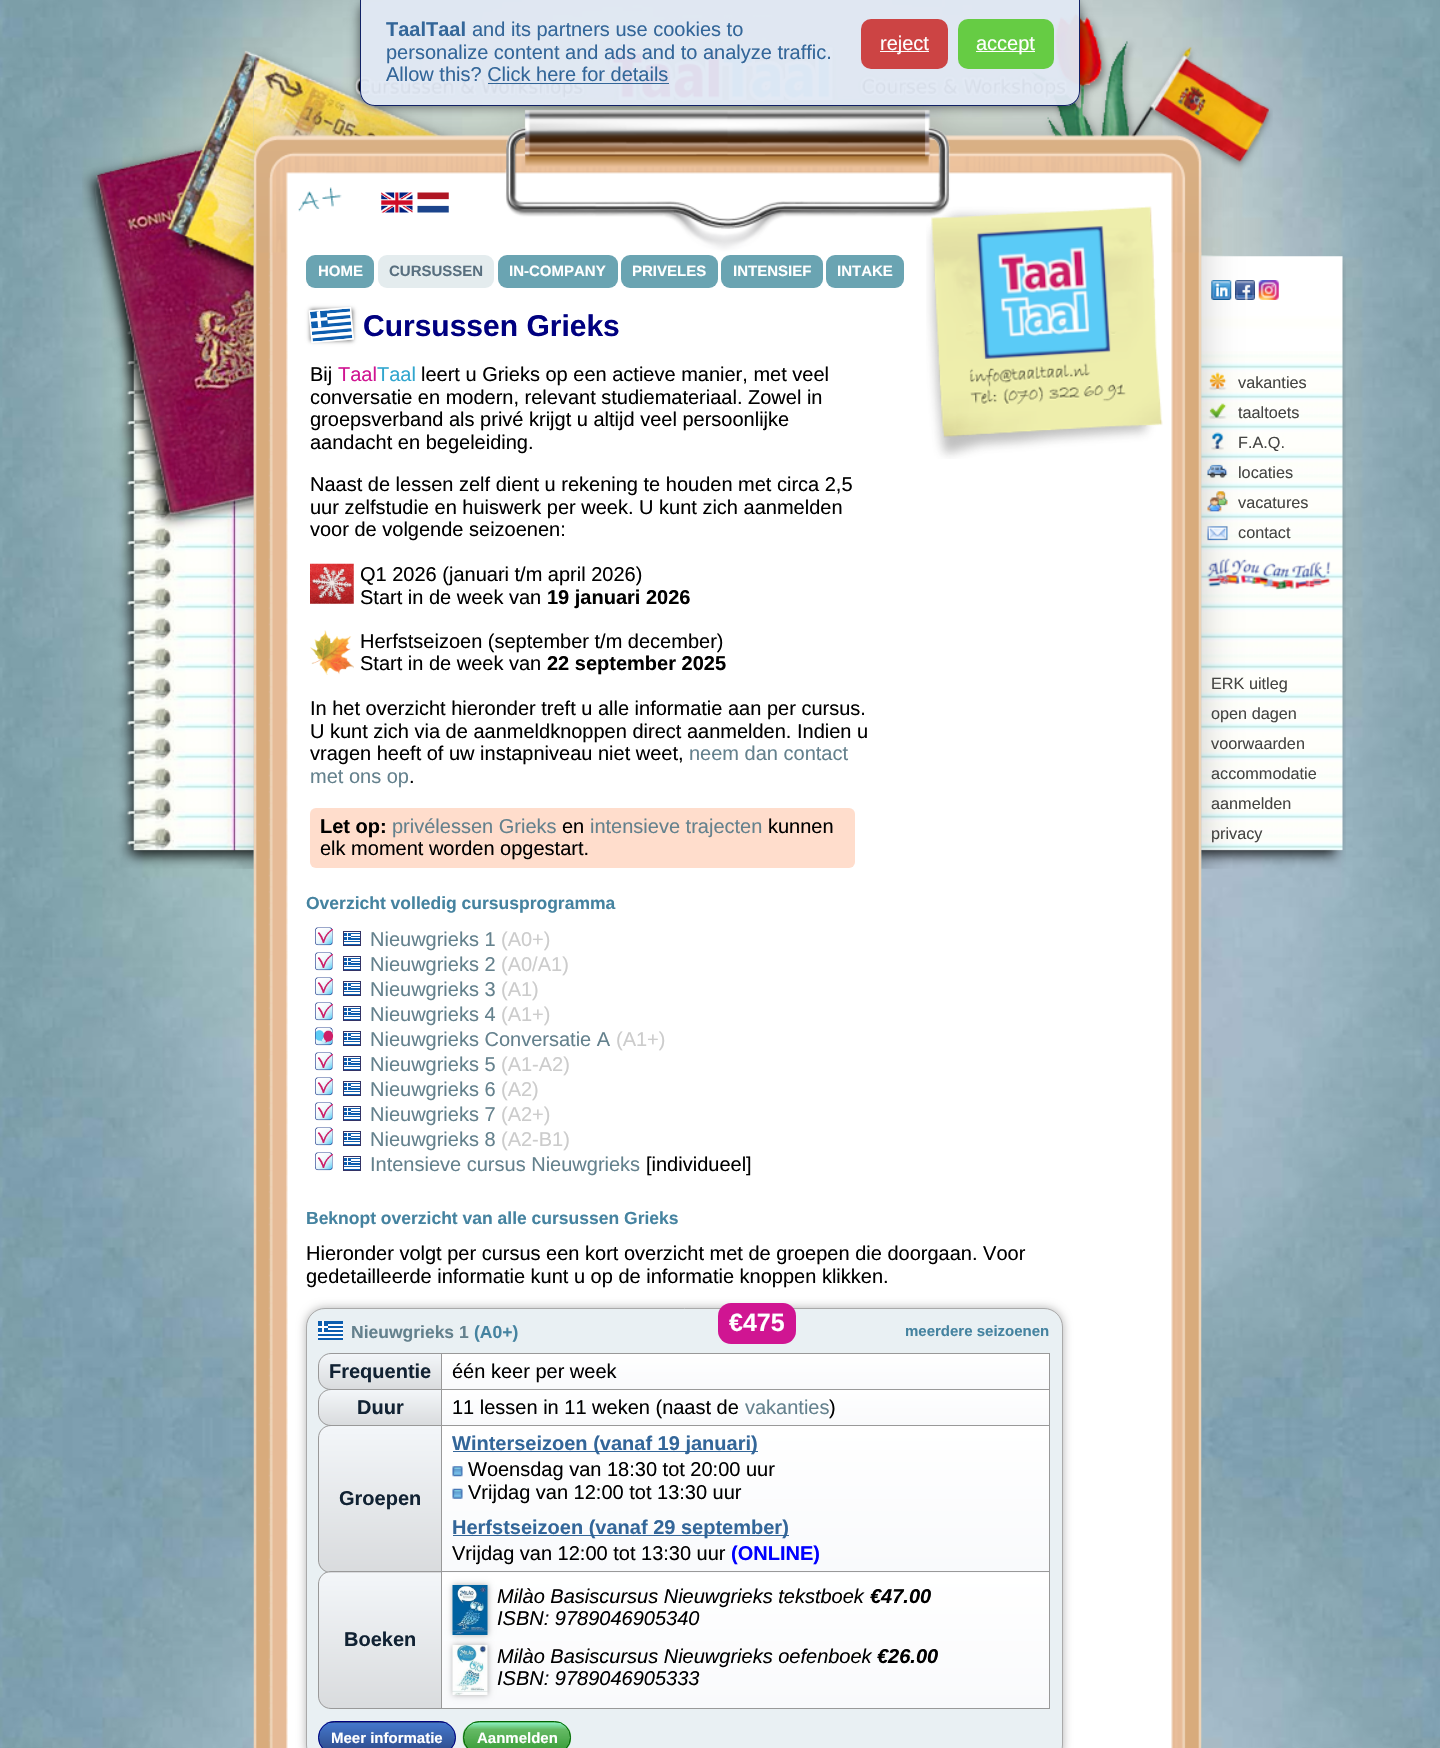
#include "include/core/SkBlurTypes.h"
#include "include/core/SkCanvas.h"
#include "include/core/SkData.h"
#include "include/core/SkFont.h"
#include "include/core/SkFontMgr.h"
#include "include/core/SkImage.h"
#include "include/core/SkMaskFilter.h"
#include "include/core/SkPaint.h"
#include "include/core/SkPathBuilder.h"
#include "include/core/SkTextBlob.h"
#include "include/effects/SkDashPathEffect.h"
#include "include/effects/SkGradientShader.h"
#include "include/utils/SkParsePath.h"

extern sk_sp<SkFontMgr> fontMgr;

static SkFont font(const char* family, int weight, float size, bool italic = false) {
    SkFontStyle style(weight, SkFontStyle::kNormal_Width,
        italic ? SkFontStyle::kItalic_Slant : SkFontStyle::kUpright_Slant);
    SkFont result(fontMgr->matchFamilyStyle(family, style), size);
    result.setSubpixel(true);
    return result;
}

static void drawLabel(SkCanvas* canvas, const char* s, float x, float y, const SkFont& font, SkColor color) {
    SkPaint ink(SkColor4f::FromColor(color));
    ink.setAntiAlias(true);
    canvas->drawString(s, x, y, font, ink);
}

static void fillRect(SkCanvas* canvas, float x, float y, float w, float h, SkColor color) {
    SkPaint ink(SkColor4f::FromColor(color));
    ink.setAntiAlias(true);
    canvas->drawRect(SkRect::MakeXYWH(x, y, w, h), ink);
}

static void fillRRect(SkCanvas* canvas, float x, float y, float w, float h, float radius, SkColor color) {
    SkPaint ink(SkColor4f::FromColor(color));
    ink.setAntiAlias(true);
    canvas->drawRoundRect(SkRect::MakeXYWH(x, y, w, h), radius, radius, ink);
}

static void drawPhoto(SkCanvas* canvas, const char* path, float x, float y, float w, float h) {
    auto image = SkImages::DeferredFromEncodedData(SkData::MakeFromFileName(path));
    canvas->drawImageRect(image, SkRect::MakeXYWH(x, y, w, h), SkSamplingOptions());
}

static SkPath parsePath(const char* data, bool evenOdd = false) {
    SkPath result = *SkParsePath::FromSVGString(data);
    if (evenOdd) result.setFillType(SkPathFillType::kEvenOdd);
    return result;
}

void draw(SkCanvas* canvas) {
    SkPaint paint;
    paint.setAntiAlias(true);
    canvas->clear(0xFFFFFFFF);
    drawPhoto(canvas, "assets/img1.png", 0, 0, 1440, 1748);
    drawPhoto(canvas, "assets/img3.png", 253, 13, 1020, 242);
    canvas->save();
    canvas->clipPath(parsePath("M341 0H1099V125H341ZM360 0H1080V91C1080 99.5 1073.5 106 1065 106H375C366.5 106 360 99.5 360 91Z", true), true);
    paint.setColor(0x99000000);
    paint.setMaskFilter(SkMaskFilter::MakeBlur(kNormal_SkBlurStyle, 6));
    canvas->drawRoundRect(SkRect::MakeXYWH(360, 0, 720, 106), 15, 15, paint);
    paint.setMaskFilter(nullptr);
    canvas->restore();
    paint.setColor(0xF2E0E8F3);
    canvas->drawPath(parsePath("M360 0H1080V91C1080 99.5 1073.5 106 1065 106H375C366.5 106 360 99.5 360 91Z"), paint);
    paint.setColor(0xFF112266);
    canvas->drawPath(parsePath("M360 0H1080V91C1080 100 1073 106 1065 106H375C367 106 360 100 360 91ZM361 0H1079V91C1079 99 1073 105 1065 105H375C367 105 361 99 361 91Z", true), paint);
    SkFont font1 = font("Liberation Sans", 700, 20);
    drawLabel(canvas, "TaalTaal", 386, 36, font1, 0xFF336699);
    SkFont font2 = font("Liberation Sans", 400, 20);
    drawLabel(canvas, "and its partners use cookies to", 472, 36, font2, 0xFF336699);
    drawLabel(canvas, "personalize content and ads and to analyze traffic.", 386, 59, font2, 0xFF336699);
    drawLabel(canvas, "Allow this? Click here for details", 386, 81, font2, 0xFF336699);
    fillRect(canvas, 488, 83, 181, 1, 0xFF336699);
    fillRRect(canvas, 861, 19, 87, 50, 10, 0xFFCC4444);
    fillRect(canvas, 880, 51, 49, 1, 0xFFFFFFFF);
    drawLabel(canvas, "reject", 880, 50, font2, 0xFFFFFFFF);
    fillRRect(canvas, 958, 19, 96, 50, 10, 0xFF66CC44);
    fillRect(canvas, 976, 51, 59, 1, 0xFFFFFFFF);
    drawLabel(canvas, "accept", 976, 50, font2, 0xFFFFFFFF);
    drawPhoto(canvas, "assets/img2.png", 82, 50, 172, 819);
    drawPhoto(canvas, "assets/img5.png", 1201, 256, 145, 613);
    drawPhoto(canvas, "assets/img6.png", 253, 252, 949, 1496);
    drawPhoto(canvas, "assets/img4.png", 926, 206, 237, 253);
    drawPhoto(canvas, "assets/img7.png", 381, 192, 32, 21);
    drawPhoto(canvas, "assets/img8.png", 417, 192, 32, 21);
    fillRRect(canvas, 306, 255, 68, 33, 9, 0xFF6AA4B2);
    SkFont font3 = font("Liberation Sans", 700, 15);
    drawLabel(canvas, "HOME", 318, 276, font3, 0xFFFFFFFF);
    fillRRect(canvas, 378, 255, 116, 33, 9, 0xFFE4ECEE);
    drawLabel(canvas, "CURSUSSEN", 389, 276, font3, 0xFF586F7F);
    fillRRect(canvas, 498, 255, 120, 33, 9, 0xFF6AA4B2);
    drawLabel(canvas, "IN-COMPANY", 509, 276, font3, 0xFFFFFFFF);
    fillRRect(canvas, 621, 255, 97, 33, 9, 0xFF6AA4B2);
    drawLabel(canvas, "PRIVELES", 632, 276, font3, 0xFFFFFFFF);
    fillRRect(canvas, 721, 255, 102, 33, 9, 0xFF6AA4B2);
    drawLabel(canvas, "INTENSIEF", 733, 276, font3, 0xFFFFFFFF);
    fillRRect(canvas, 826, 255, 78, 33, 9, 0xFF6AA4B2);
    drawLabel(canvas, "INTAKE", 837, 276, font3, 0xFFFFFFFF);
    canvas->save();
    canvas->clipPath(parsePath("M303 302H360V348H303ZM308.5 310.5L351 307L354 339.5L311.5 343Z", true), true);
    paint.setColor(0x80000000);
    paint.setMaskFilter(SkMaskFilter::MakeBlur(kNormal_SkBlurStyle, 2));
    canvas->drawRect(SkRect::MakeXYWH(310, 309, 43, 32), paint);
    paint.setMaskFilter(nullptr);
    canvas->restore();
    paint.setStroke(true);
    paint.setStrokeWidth(1.3f);
    paint.setColor(0xB3FFFFFF);
    canvas->drawPath(parsePath("M309.5 311L350.5 307.5L353 339L312 342.5Z"), paint);
    drawPhoto(canvas, "assets/img9.png", 310, 308, 43, 34);
    SkFont font4 = font("Liberation Sans", 700, 30);
    drawLabel(canvas, "Cursussen Grieks", 363, 336, font4, 0xFF000080);
    drawLabel(canvas, "Bij", 310, 381, font2, 0xFF000000);
    drawLabel(canvas, "Taal", 338, 381, font2, 0xFFD01592);
    drawLabel(canvas, "Taal", 377, 381, font2, 0xFF31A6CE);
    drawLabel(canvas, "leert u Grieks op een actieve manier, met veel", 421, 381, font2, 0xFF000000);
    drawLabel(canvas, "conversatie en modern, relevant studiemateriaal. Zowel in", 310, 404, font2, 0xFF000000);
    drawLabel(canvas, "groepsverband als privé krijgt u altijd veel persoonlijke", 310, 426, font2, 0xFF000000);
    drawLabel(canvas, "aandacht en begeleiding.", 310, 449, font2, 0xFF000000);
    drawLabel(canvas, "Naast de lessen zelf dient u rekening te houden met circa 2,5", 310, 491, font2, 0xFF000000);
    drawLabel(canvas, "uur zelfstudie en huiswerk per week. U kunt zich aanmelden", 310, 514, font2, 0xFF000000);
    drawLabel(canvas, "voor de volgende seizoenen:", 310, 536, font2, 0xFF000000);
    drawPhoto(canvas, "assets/img10.png", 310, 563, 44, 41);
    drawLabel(canvas, "Q1 2026 (januari t/m april 2026)", 360, 581, font2, 0xFF000000);
    drawLabel(canvas, "Start in de week van", 360, 604, font2, 0xFF000000);
    drawLabel(canvas, "19 januari 2026", 547, 604, font1, 0xFF000000);
    drawPhoto(canvas, "assets/img11.png", 310, 630, 44, 45);
    drawLabel(canvas, "Herfstseizoen (september t/m december)", 360, 648, font2, 0xFF000000);
    drawLabel(canvas, "Start in de week van", 360, 670, font2, 0xFF000000);
    drawLabel(canvas, "22 september 2025", 547, 670, font1, 0xFF000000);
    drawLabel(canvas, "In het overzicht hieronder treft u alle informatie aan per cursus.", 310, 715, font2, 0xFF000000);
    drawLabel(canvas, "U kunt zich via de aanmeldknoppen direct aanmelden. Indien u", 310, 738, font2, 0xFF000000);
    drawLabel(canvas, "vragen heeft of uw instapniveau niet weet,", 310, 760, font2, 0xFF000000);
    drawLabel(canvas, "neem dan contact", 689, 760, font2, 0xFF64818D);
    drawLabel(canvas, "met ons op", 310, 783, font2, 0xFF64818D);
    drawLabel(canvas, ".", 409, 783, font2, 0xFF000000);
    fillRRect(canvas, 310, 808, 545, 60, 6, 0xFFFFDDCC);
    drawLabel(canvas, "Let op:", 320, 833, font1, 0xFF000000);
    drawLabel(canvas, "privélessen Grieks", 392, 833, font2, 0xFF64818D);
    drawLabel(canvas, "en", 562, 833, font2, 0xFF000000);
    drawLabel(canvas, "intensieve trajecten", 590, 833, font2, 0xFF64818D);
    drawLabel(canvas, "kunnen", 768, 833, font2, 0xFF000000);
    drawLabel(canvas, "elk moment worden opgestart.", 320, 855, font2, 0xFF000000);
    SkFont font5 = font("Liberation Sans", 700, 17.5f);
    drawLabel(canvas, "Overzicht volledig cursusprogramma", 306, 909, font5, 0xFF4583A0);
    drawPhoto(canvas, "assets/img12.png", 315, 927, 18, 19);
    paint.setStrokeWidth(1);
    paint.setColor(0xFF333366);
    canvas->drawRect(SkRect::MakeXYWH(343.5f, 931.5f, 17, 14), paint);
    drawPhoto(canvas, "assets/img13.png", 344, 933, 16, 12);
    drawLabel(canvas, "Nieuwgrieks 1", 370, 946, font2, 0xFF64818D);
    drawLabel(canvas, "(A0+)", 501, 946, font2, 0xFFCCCCCC);
    drawPhoto(canvas, "assets/img12.png", 315, 952, 18, 19);
    canvas->drawRect(SkRect::MakeXYWH(343.5f, 956.5f, 17, 14), paint);
    drawPhoto(canvas, "assets/img13.png", 344, 958, 16, 12);
    drawLabel(canvas, "Nieuwgrieks 2", 370, 971, font2, 0xFF64818D);
    drawLabel(canvas, "(A0/A1)", 501, 971, font2, 0xFFCCCCCC);
    drawPhoto(canvas, "assets/img12.png", 315, 977, 18, 19);
    canvas->drawRect(SkRect::MakeXYWH(343.5f, 981.5f, 17, 14), paint);
    drawPhoto(canvas, "assets/img13.png", 344, 983, 16, 12);
    drawLabel(canvas, "Nieuwgrieks 3", 370, 996, font2, 0xFF64818D);
    drawLabel(canvas, "(A1)", 501, 996, font2, 0xFFCCCCCC);
    drawPhoto(canvas, "assets/img12.png", 315, 1002, 18, 19);
    canvas->drawRect(SkRect::MakeXYWH(343.5f, 1006.5f, 17, 14), paint);
    drawPhoto(canvas, "assets/img13.png", 344, 1008, 16, 12);
    drawLabel(canvas, "Nieuwgrieks 4", 370, 1021, font2, 0xFF64818D);
    drawLabel(canvas, "(A1+)", 501, 1021, font2, 0xFFCCCCCC);
    drawPhoto(canvas, "assets/img14.png", 315, 1027, 19, 19);
    canvas->drawRect(SkRect::MakeXYWH(343.5f, 1031.5f, 17, 14), paint);
    drawPhoto(canvas, "assets/img13.png", 344, 1033, 16, 12);
    drawLabel(canvas, "Nieuwgrieks Conversatie A", 370, 1046, font2, 0xFF64818D);
    drawLabel(canvas, "(A1+)", 616, 1046, font2, 0xFFCCCCCC);
    drawPhoto(canvas, "assets/img12.png", 315, 1052, 18, 19);
    canvas->drawRect(SkRect::MakeXYWH(343.5f, 1056.5f, 17, 14), paint);
    drawPhoto(canvas, "assets/img13.png", 344, 1058, 16, 12);
    drawLabel(canvas, "Nieuwgrieks 5", 370, 1071, font2, 0xFF64818D);
    drawLabel(canvas, "(A1-A2)", 501, 1071, font2, 0xFFCCCCCC);
    drawPhoto(canvas, "assets/img12.png", 315, 1077, 18, 19);
    canvas->drawRect(SkRect::MakeXYWH(343.5f, 1081.5f, 17, 14), paint);
    drawPhoto(canvas, "assets/img13.png", 344, 1083, 16, 12);
    drawLabel(canvas, "Nieuwgrieks 6", 370, 1096, font2, 0xFF64818D);
    drawLabel(canvas, "(A2)", 501, 1096, font2, 0xFFCCCCCC);
    drawPhoto(canvas, "assets/img12.png", 315, 1102, 18, 19);
    canvas->drawRect(SkRect::MakeXYWH(343.5f, 1106.5f, 17, 14), paint);
    drawPhoto(canvas, "assets/img13.png", 344, 1108, 16, 12);
    drawLabel(canvas, "Nieuwgrieks 7", 370, 1121, font2, 0xFF64818D);
    drawLabel(canvas, "(A2+)", 501, 1121, font2, 0xFFCCCCCC);
    drawPhoto(canvas, "assets/img12.png", 315, 1127, 18, 19);
    canvas->drawRect(SkRect::MakeXYWH(343.5f, 1131.5f, 17, 14), paint);
    drawPhoto(canvas, "assets/img13.png", 344, 1133, 16, 12);
    drawLabel(canvas, "Nieuwgrieks 8", 370, 1146, font2, 0xFF64818D);
    drawLabel(canvas, "(A2-B1)", 501, 1146, font2, 0xFFCCCCCC);
    drawPhoto(canvas, "assets/img12.png", 315, 1152, 18, 19);
    canvas->drawRect(SkRect::MakeXYWH(343.5f, 1156.5f, 17, 14), paint);
    drawPhoto(canvas, "assets/img13.png", 344, 1158, 16, 12);
    drawLabel(canvas, "Intensieve cursus Nieuwgrieks", 370, 1171, font2, 0xFF64818D);
    drawLabel(canvas, "[individueel]", 646, 1171, font2, 0xFF000000);
    drawLabel(canvas, "Beknopt overzicht van alle cursussen Grieks", 306, 1224, font5, 0xFF4583A0);
    drawLabel(canvas, "Hieronder volgt per cursus een kort overzicht met de groepen die doorgaan. Voor", 306, 1260, font2, 0xFF000000);
    drawLabel(canvas, "gedetailleerde informatie kunt u op de informatie knoppen klikken.", 306, 1283, font2, 0xFF000000);
    paint.setStroke(false);
    paint.setColor(0x4D000000);
    paint.setMaskFilter(SkMaskFilter::MakeBlur(kNormal_SkBlurStyle, 5));
    canvas->drawRoundRect(SkRect::MakeXYWH(306, 1308, 757, 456), 19, 19, paint);
    paint.setMaskFilter(nullptr);
    paint.setColor(0xFFE9F0F3);
    canvas->drawRoundRect(SkRect::MakeXYWH(306.5f, 1308.5f, 756, 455), 18.5f, 18.5f, paint);
    paint.setStroke(true);
    paint.setColor(0xFFAAAAAA);
    canvas->drawRoundRect(SkRect::MakeXYWH(306.5f, 1308.5f, 756, 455), 18.5f, 18.5f, paint);
    drawPhoto(canvas, "assets/img15.png", 318, 1321, 25, 19);
    drawLabel(canvas, "Nieuwgrieks 1", 351, 1338, font5, 0xFF64818D);
    drawLabel(canvas, "(A0+)", 474, 1338, font5, 0xFF4583A0);
    fillRRect(canvas, 718, 1303, 78, 41, 13, 0xFFD01592);
    SkFont font6 = font("Liberation Sans", 700, 25);
    drawLabel(canvas, "€475", 729, 1331, font6, 0xFFFFFFFF);
    drawLabel(canvas, "meerdere seizoenen", 905, 1336, font3, 0xFF4583A0);
    canvas->save();
    canvas->clipPath(parsePath("M331 1353H443V1390H331C324 1390 318 1384 318 1377V1366C318 1359 324 1353 331 1353Z"), true);
    paint.setStroke(false);
    {
        const SkColor colors[] = {0xFFF3F6F9, 0xFF999999};
        const float stops[] = {0, 1};
        const SkPoint ends[] = {{380, 1354}, {380, 1476}};
        paint.setShader(SkGradientShader::MakeLinear(ends, colors, stops, 2, SkTileMode::kClamp));
        paint.setAlpha(255);
    }
    canvas->drawRect(SkRect::MakeXYWH(318, 1354, 123, 35), paint);
    canvas->restore();
    paint.setStroke(true);
    paint.setShader(nullptr);
    paint.setColor(0xFF999999);
    canvas->drawPath(parsePath("M331 1353.5H442.5V1389.5H331C324 1389.5 318.5 1384 318.5 1377V1366C318.5 1359 324 1353.5 331 1353.5Z"), paint);
    drawLabel(canvas, "Frequentie", 329, 1378, font1, 0xFF112233);
    paint.setStroke(false);
    {
        const SkColor colors[] = {0xFFFFFFFF, 0xFFF9FAFC};
        const float stops[] = {0, 1};
        const SkPoint ends[] = {{746, 1354}, {746, 1389}};
        paint.setShader(SkGradientShader::MakeLinear(ends, colors, stops, 2, SkTileMode::kClamp));
        paint.setAlpha(255);
    }
    canvas->drawRect(SkRect::MakeXYWH(442, 1354, 607, 35), paint);
    paint.setStroke(true);
    paint.setShader(nullptr);
    paint.setColor(0xFF999999);
    canvas->drawRect(SkRect::MakeXYWH(441.5f, 1353.5f, 608, 36), paint);
    drawLabel(canvas, "één keer per week", 452, 1378, font2, 0xFF000000);
    canvas->save();
    canvas->clipPath(parsePath("M331 1389H443V1426H331C324 1426 318 1420 318 1413V1402C318 1395 324 1389 331 1389Z"), true);
    paint.setStroke(false);
    {
        const SkColor colors[] = {0xFFF3F6F9, 0xFF999999};
        const float stops[] = {0, 1};
        const SkPoint ends[] = {{380, 1390}, {380, 1513}};
        paint.setShader(SkGradientShader::MakeLinear(ends, colors, stops, 2, SkTileMode::kClamp));
        paint.setAlpha(255);
    }
    canvas->drawRect(SkRect::MakeXYWH(318, 1390, 123, 35), paint);
    canvas->restore();
    paint.setStroke(true);
    paint.setShader(nullptr);
    paint.setColor(0xFF999999);
    canvas->drawPath(parsePath("M331 1389.5H442.5V1425.5H331C324 1425.5 318.5 1420 318.5 1413V1402C318.5 1395 324 1389.5 331 1389.5Z"), paint);
    drawLabel(canvas, "Duur", 357, 1414, font1, 0xFF112233);
    paint.setStroke(false);
    {
        const SkColor colors[] = {0xFFFFFFFF, 0xFFF9FAFC};
        const float stops[] = {0, 1};
        const SkPoint ends[] = {{746, 1390}, {746, 1425}};
        paint.setShader(SkGradientShader::MakeLinear(ends, colors, stops, 2, SkTileMode::kClamp));
        paint.setAlpha(255);
    }
    canvas->drawRect(SkRect::MakeXYWH(442, 1390, 607, 35), paint);
    paint.setStroke(true);
    paint.setShader(nullptr);
    paint.setColor(0xFF999999);
    canvas->drawRect(SkRect::MakeXYWH(441.5f, 1389.5f, 608, 36), paint);
    drawLabel(canvas, "11 lessen in 11 weken (naast de", 452, 1414, font2, 0xFF000000);
    drawLabel(canvas, "vakanties", 745, 1414, font2, 0xFF64818D);
    drawLabel(canvas, ")", 829, 1414, font2, 0xFF000000);
    canvas->save();
    canvas->clipPath(parsePath("M331 1425H443V1573H331C324 1573 318 1567 318 1560V1438C318 1431 324 1425 331 1425Z"), true);
    paint.setStroke(false);
    {
        const SkColor colors[] = {0xFFF3F6F9, 0xFF999999};
        const float stops[] = {0, 1};
        const SkPoint ends[] = {{380, 1426}, {380, 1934}};
        paint.setShader(SkGradientShader::MakeLinear(ends, colors, stops, 2, SkTileMode::kClamp));
        paint.setAlpha(255);
    }
    canvas->drawRect(SkRect::MakeXYWH(318, 1426, 123, 145), paint);
    canvas->restore();
    paint.setStroke(true);
    paint.setShader(nullptr);
    paint.setColor(0xFF999999);
    canvas->drawPath(parsePath("M331 1425.5H442.5V1572.5H331C324 1572.5 318.5 1567 318.5 1560V1438C318.5 1431 324 1425.5 331 1425.5Z"), paint);
    drawLabel(canvas, "Groepen", 339, 1505, font1, 0xFF112233);
    paint.setStroke(false);
    {
        const SkColor colors[] = {0xFFFFFFFF, 0xFFF9FAFC};
        const float stops[] = {0, 1};
        const SkPoint ends[] = {{746, 1426}, {746, 1571}};
        paint.setShader(SkGradientShader::MakeLinear(ends, colors, stops, 2, SkTileMode::kClamp));
        paint.setAlpha(255);
    }
    canvas->drawRect(SkRect::MakeXYWH(442, 1426, 607, 145), paint);
    paint.setStroke(true);
    paint.setShader(nullptr);
    paint.setColor(0xFF999999);
    canvas->drawRect(SkRect::MakeXYWH(441.5f, 1425.5f, 608, 147), paint);
    fillRect(canvas, 453, 1451, 305, 1, 0xFF336699);
    drawLabel(canvas, "Winterseizoen (vanaf 19 januari)", 452, 1450, font1, 0xFF336699);
    drawPhoto(canvas, "assets/img16.png", 452, 1466, 11, 11);
    drawLabel(canvas, "Woensdag van 18:30 tot 20:00 uur", 468, 1476, font2, 0xFF000000);
    drawPhoto(canvas, "assets/img17.png", 452, 1488, 11, 11);
    drawLabel(canvas, "Vrijdag van 12:00 tot 13:30 uur", 468, 1499, font2, 0xFF000000);
    fillRect(canvas, 453, 1535, 336, 1, 0xFF336699);
    drawLabel(canvas, "Herfstseizoen (vanaf 29 september)", 452, 1534, font1, 0xFF336699);
    drawLabel(canvas, "Vrijdag van 12:00 tot 13:30 uur", 452, 1560, font2, 0xFF000000);
    drawLabel(canvas, "(ONLINE)", 731, 1560, font1, 0xFF0000FF);
    canvas->save();
    canvas->clipPath(parsePath("M331 1571H443V1709H331C324 1709 318 1703 318 1696V1584C318 1577 324 1571 331 1571Z"), true);
    paint.setStroke(false);
    {
        const SkColor colors[] = {0xFFF3F6F9, 0xFF999999};
        const float stops[] = {0, 1};
        const SkPoint ends[] = {{380, 1438}, {380, 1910}};
        paint.setShader(SkGradientShader::MakeLinear(ends, colors, stops, 2, SkTileMode::kClamp));
        paint.setAlpha(255);
    }
    canvas->drawRect(SkRect::MakeXYWH(318, 1571, 125, 2), paint);
    {
        const SkColor colors[] = {0xFFF3F6F9, 0xFF999999};
        const float stops[] = {0, 1};
        const SkPoint ends[] = {{380, 1573}, {380, 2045}};
        paint.setShader(SkGradientShader::MakeLinear(ends, colors, stops, 2, SkTileMode::kClamp));
        paint.setAlpha(255);
    }
    canvas->drawRect(SkRect::MakeXYWH(318, 1573, 123, 135), paint);
    canvas->restore();
    paint.setStroke(true);
    paint.setShader(nullptr);
    paint.setColor(0xFF999999);
    canvas->drawPath(parsePath("M331 1571.5H442.5V1708.5H331C324 1708.5 318.5 1703 318.5 1696V1584C318.5 1577 324 1571.5 331 1571.5Z"), paint);
    drawLabel(canvas, "Boeken", 344, 1646, font1, 0xFF112233);
    paint.setStroke(false);
    {
        const SkColor colors[] = {0xFFFFFFFF, 0xFFF9FAFC};
        const float stops[] = {0, 1};
        const SkPoint ends[] = {{746, 1438}, {746, 1573}};
        paint.setShader(SkGradientShader::MakeLinear(ends, colors, stops, 2, SkTileMode::kClamp));
        paint.setAlpha(255);
    }
    canvas->drawRect(SkRect::MakeXYWH(441, 1572, 609, 1), paint);
    {
        const SkColor colors[] = {0xFFFFFFFF, 0xFFF9FAFC};
        const float stops[] = {0, 1};
        const SkPoint ends[] = {{746, 1573}, {746, 1708}};
        paint.setShader(SkGradientShader::MakeLinear(ends, colors, stops, 2, SkTileMode::kClamp));
        paint.setAlpha(255);
    }
    canvas->drawRect(SkRect::MakeXYWH(442, 1573, 607, 135), paint);
    paint.setStroke(true);
    paint.setShader(nullptr);
    paint.setColor(0xFF999999);
    canvas->drawRect(SkRect::MakeXYWH(441.5f, 1571.5f, 608, 137), paint);
    paint.setStroke(false);
    paint.setColor(0x4D000000);
    paint.setMaskFilter(SkMaskFilter::MakeBlur(kNormal_SkBlurStyle, 3));
    canvas->drawRect(SkRect::MakeXYWH(453, 1585, 35, 50), paint);
    paint.setMaskFilter(nullptr);
    drawPhoto(canvas, "assets/img18.png", 452, 1585, 36, 50);
    SkFont font7 = font("Liberation Sans", 400, 20, true);
    drawLabel(canvas, "Milào Basiscursus Nieuwgrieks tekstboek", 497, 1603, font7, 0xFF000000);
    SkFont font8 = font("Liberation Sans", 700, 20, true);
    drawLabel(canvas, "€47.00", 870, 1603, font8, 0xFF000000);
    drawLabel(canvas, "ISBN: 9789046905340", 497, 1625, font7, 0xFF000000);
    paint.setMaskFilter(SkMaskFilter::MakeBlur(kNormal_SkBlurStyle, 3));
    canvas->drawRect(SkRect::MakeXYWH(453, 1645, 35, 50), paint);
    paint.setMaskFilter(nullptr);
    drawPhoto(canvas, "assets/img19.png", 452, 1645, 36, 50);
    drawLabel(canvas, "Milào Basiscursus Nieuwgrieks oefenboek", 497, 1663, font7, 0xFF000000);
    drawLabel(canvas, "€26.00", 877, 1663, font8, 0xFF000000);
    drawLabel(canvas, "ISBN: 9789046905333", 497, 1685, font7, 0xFF000000);
    canvas->save();
    canvas->clipPath(parsePath("M334.5 1721H439.5C448.5 1721 456 1728.5 456 1737.5C456 1746.5 448.5 1754 439.5 1754H334.5C325.5 1754 318 1746.5 318 1737.5C318 1728.5 325.5 1721 334.5 1721Z"), true);
    {
        const SkColor colors[] = {0xFF4477CC, 0xFF223366};
        const float stops[] = {0, 1};
        const SkPoint ends[] = {{387, 1723}, {387, 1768}};
        paint.setShader(SkGradientShader::MakeLinear(ends, colors, stops, 2, SkTileMode::kClamp));
        paint.setAlpha(255);
    }
    canvas->drawRect(SkRect::MakeXYWH(318, 1723, 138, 25), paint);
    {
        const SkColor colors[] = {0xFF4477CC, 0xFF223366};
        const float stops[] = {0, 1};
        const SkPoint ends[] = {{387, 1693}, {387, 1738}};
        paint.setShader(SkGradientShader::MakeLinear(ends, colors, stops, 2, SkTileMode::kClamp));
        paint.setAlpha(255);
    }
    canvas->drawRect(SkRect::MakeXYWH(318, 1721, 138, 2), paint);
    canvas->restore();
    paint.setStroke(true);
    paint.setShader(nullptr);
    paint.setColor(0xFF000080);
    canvas->drawRoundRect(SkRect::MakeXYWH(318.5f, 1721.5f, 137, 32), 16, 16, paint);
    drawLabel(canvas, "Meer informatie", 331, 1743, font3, 0xFFFFFFFF);
    drawPhoto(canvas, "assets/img20.png", 462, 1721, 110, 27);
    paint.setColor(0xFF006400);
    canvas->drawRoundRect(SkRect::MakeXYWH(463.5f, 1721.5f, 107, 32), 16, 16, paint);
    drawLabel(canvas, "Aanmelden", 477, 1743, font3, 0xFFFFFFFF);
    drawPhoto(canvas, "assets/img21.png", 1211, 280, 21, 20);
    drawPhoto(canvas, "assets/img22.png", 1235, 280, 20, 20);
    drawPhoto(canvas, "assets/img23.png", 1258, 280, 21, 20);
    drawPhoto(canvas, "assets/img24.png", 1207, 372, 21, 169);
    SkFont font9 = font("Liberation Sans", 400, 16.25f);
    drawLabel(canvas, "vakanties", 1238, 388, font9, 0xFF454543);
    drawLabel(canvas, "taaltoets", 1238, 418, font9, 0xFF454543);
    drawLabel(canvas, "F.A.Q.", 1238, 448, font9, 0xFF454543);
    drawLabel(canvas, "locaties", 1238, 478, font9, 0xFF454543);
    drawLabel(canvas, "vacatures", 1238, 508, font9, 0xFF454543);
    drawLabel(canvas, "contact", 1238, 538, font9, 0xFF454543);
    drawPhoto(canvas, "assets/img25.png", 1207, 558, 124, 32);
    drawLabel(canvas, "ERK uitleg", 1211, 689, font9, 0xFF454543);
    drawLabel(canvas, "open dagen", 1211, 719, font9, 0xFF454543);
    drawLabel(canvas, "voorwaarden", 1211, 749, font9, 0xFF454543);
    drawLabel(canvas, "accommodatie", 1211, 779, font9, 0xFF454543);
    drawLabel(canvas, "aanmelden", 1211, 809, font9, 0xFF454543);
    drawLabel(canvas, "privacy", 1211, 839, font9, 0xFF454543);
}
